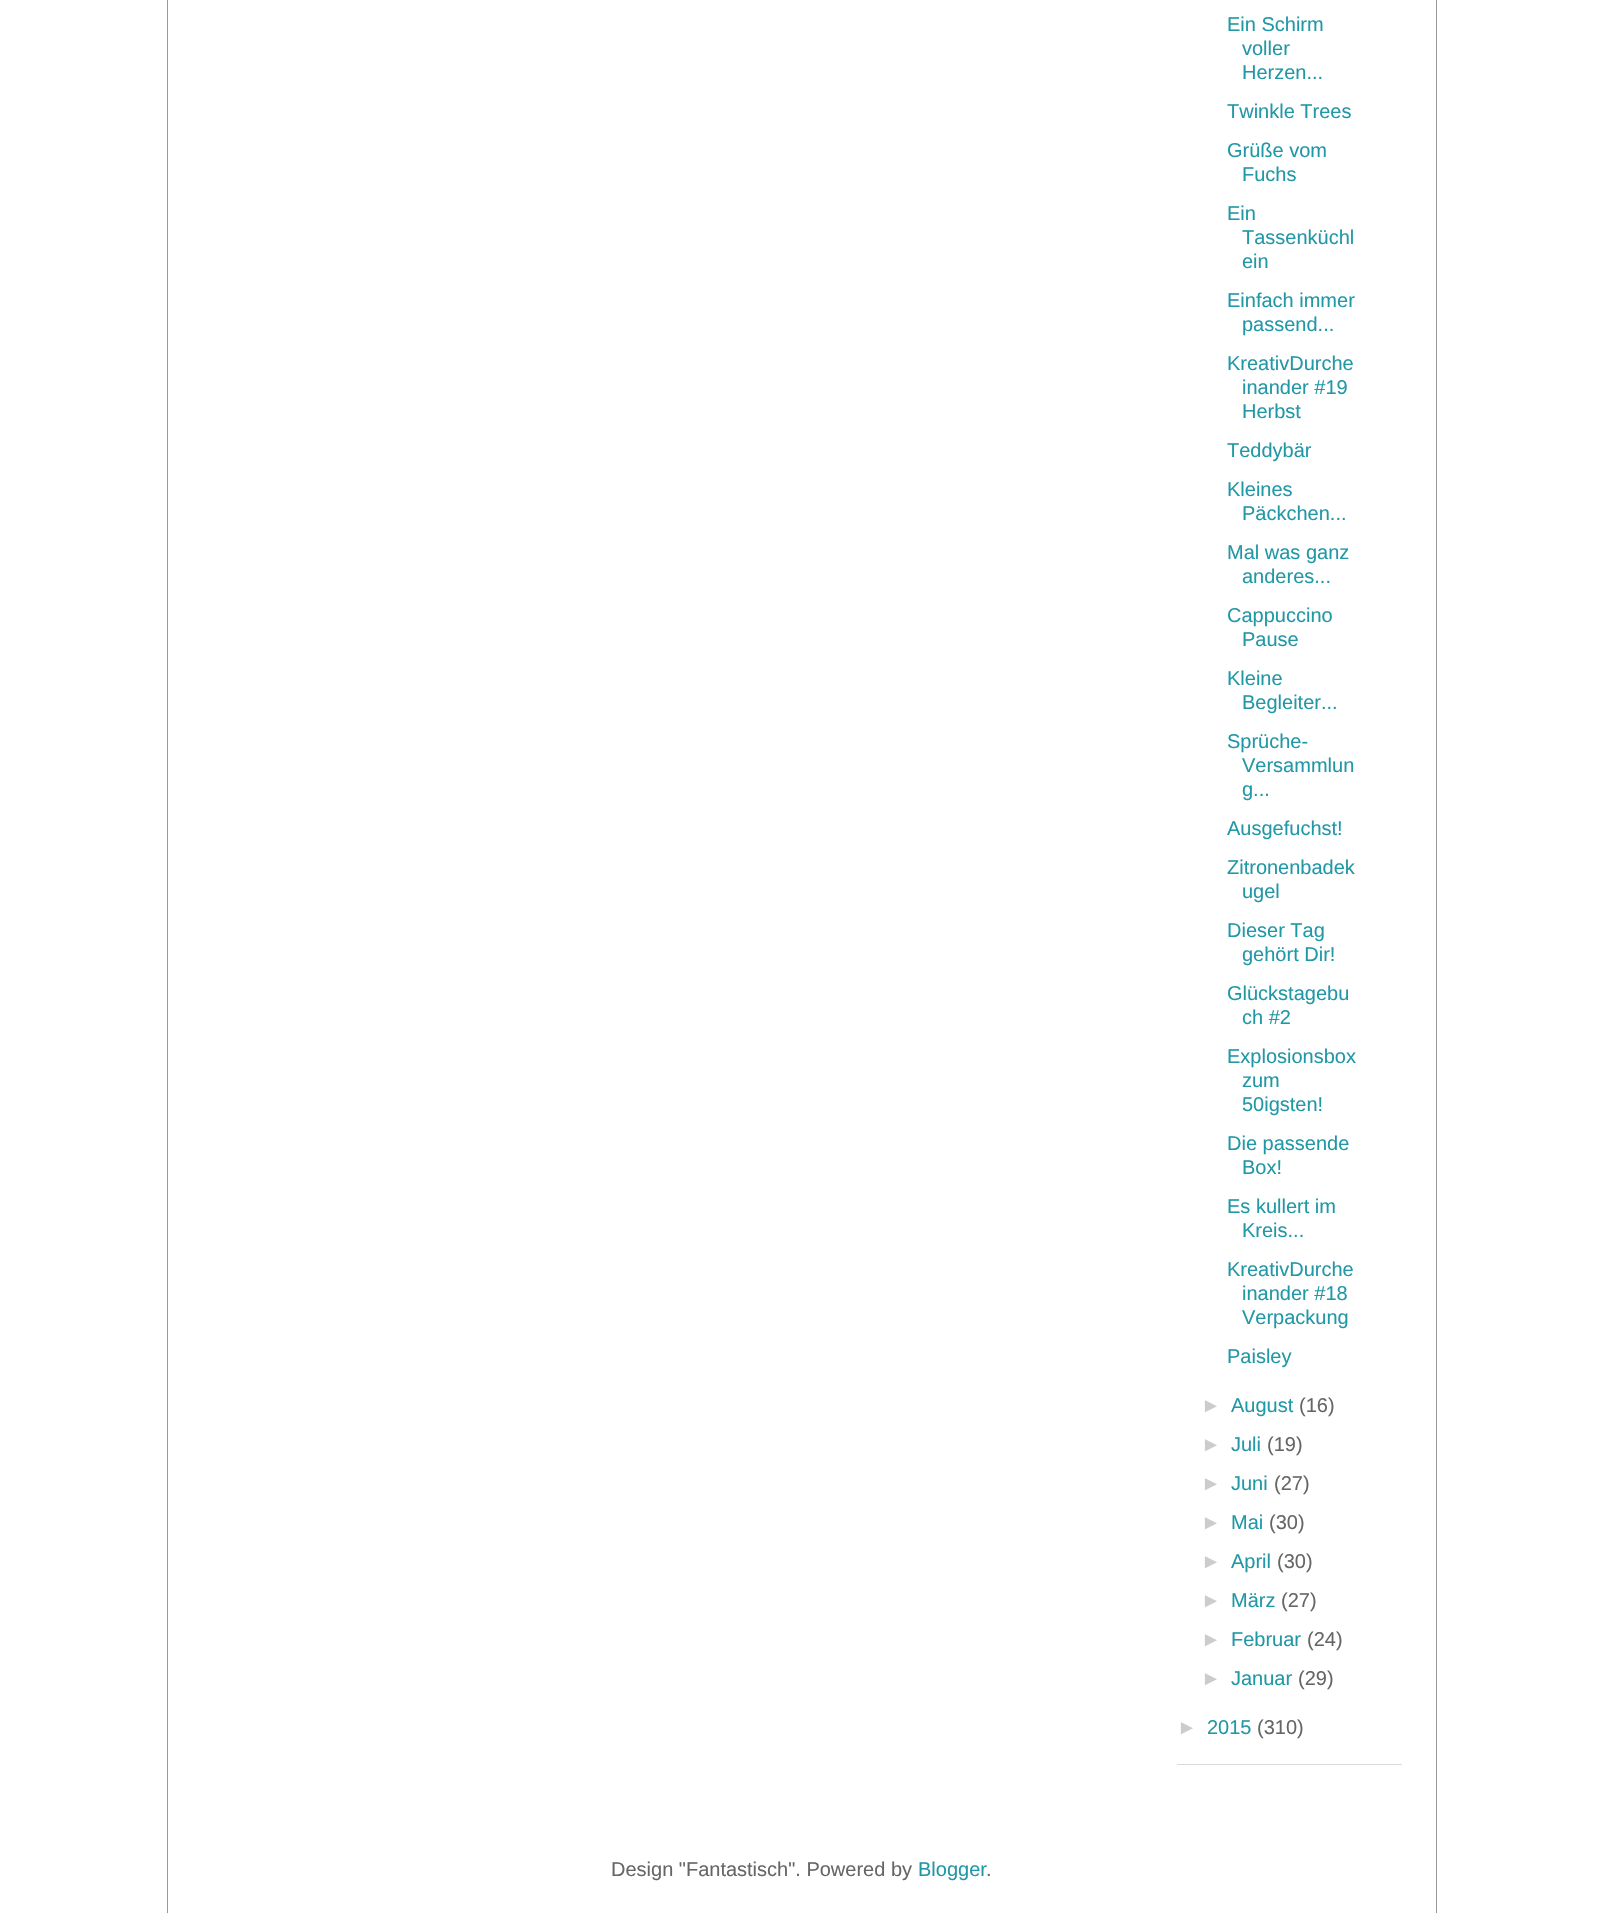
#include "include/core/SkBlurTypes.h"
#include "include/core/SkCanvas.h"
#include "include/core/SkData.h"
#include "include/core/SkFont.h"
#include "include/core/SkFontMgr.h"
#include "include/core/SkImage.h"
#include "include/core/SkMaskFilter.h"
#include "include/core/SkPaint.h"
#include "include/core/SkPathBuilder.h"
#include "include/core/SkTextBlob.h"
#include "include/effects/SkDashPathEffect.h"
#include "include/effects/SkGradientShader.h"
#include "include/utils/SkParsePath.h"

extern sk_sp<SkFontMgr> fontMgr;

static SkFont font(const char* family, int weight, float size, bool italic = false) {
    SkFontStyle style(weight, SkFontStyle::kNormal_Width,
        italic ? SkFontStyle::kItalic_Slant : SkFontStyle::kUpright_Slant);
    SkFont result(fontMgr->matchFamilyStyle(family, style), size);
    result.setSubpixel(true);
    return result;
}

static void drawLabel(SkCanvas* canvas, const char* s, float x, float y, const SkFont& font, SkColor color) {
    SkPaint ink(SkColor4f::FromColor(color));
    ink.setAntiAlias(true);
    canvas->drawString(s, x, y, font, ink);
}

static void fillRect(SkCanvas* canvas, float x, float y, float w, float h, SkColor color) {
    SkPaint ink(SkColor4f::FromColor(color));
    ink.setAntiAlias(true);
    canvas->drawRect(SkRect::MakeXYWH(x, y, w, h), ink);
}

void draw(SkCanvas* canvas) {
    SkPaint paint;
    paint.setAntiAlias(true);
    canvas->clear(0xFFFFFFFF);
    fillRect(canvas, 1436, 0, 1, 1913, 0xFF999999);
    fillRect(canvas, 167, 0, 1, 1913, 0xFF999999);
    fillRect(canvas, 1177, 1764, 225, 1, 0xFFDBDBDB);
    SkFont font1 = font("Liberation Sans", 400, 20);
    drawLabel(canvas, "Ein Schirm", 1227, 31, font1, 0xFF2198A6);
    drawLabel(canvas, "voller", 1242, 55, font1, 0xFF2198A6);
    drawLabel(canvas, "Herzen...", 1242, 79, font1, 0xFF2198A6);
    drawLabel(canvas, "Twinkle Trees", 1227, 118, font1, 0xFF2198A6);
    drawLabel(canvas, "Grüße vom", 1227, 157, font1, 0xFF2198A6);
    drawLabel(canvas, "Fuchs", 1242, 181, font1, 0xFF2198A6);
    drawLabel(canvas, "Ein", 1227, 220, font1, 0xFF2198A6);
    drawLabel(canvas, "Tassenküchl", 1242, 244, font1, 0xFF2198A6);
    drawLabel(canvas, "ein", 1242, 268, font1, 0xFF2198A6);
    drawLabel(canvas, "Einfach immer", 1227, 307, font1, 0xFF2198A6);
    drawLabel(canvas, "passend...", 1242, 331, font1, 0xFF2198A6);
    drawLabel(canvas, "KreativDurche", 1227, 370, font1, 0xFF2198A6);
    drawLabel(canvas, "inander #19", 1242, 394, font1, 0xFF2198A6);
    drawLabel(canvas, "Herbst", 1242, 418, font1, 0xFF2198A6);
    drawLabel(canvas, "Teddybär", 1227, 457, font1, 0xFF2198A6);
    drawLabel(canvas, "Kleines", 1227, 496, font1, 0xFF2198A6);
    drawLabel(canvas, "Päckchen...", 1242, 520, font1, 0xFF2198A6);
    drawLabel(canvas, "Mal was ganz", 1227, 559, font1, 0xFF2198A6);
    drawLabel(canvas, "anderes...", 1242, 583, font1, 0xFF2198A6);
    drawLabel(canvas, "Cappuccino", 1227, 622, font1, 0xFF2198A6);
    drawLabel(canvas, "Pause", 1242, 646, font1, 0xFF2198A6);
    drawLabel(canvas, "Kleine", 1227, 685, font1, 0xFF2198A6);
    drawLabel(canvas, "Begleiter...", 1242, 709, font1, 0xFF2198A6);
    drawLabel(canvas, "Sprüche-", 1227, 748, font1, 0xFF2198A6);
    drawLabel(canvas, "Versammlun", 1242, 772, font1, 0xFF2198A6);
    drawLabel(canvas, "g...", 1242, 796, font1, 0xFF2198A6);
    drawLabel(canvas, "Ausgefuchst!", 1227, 835, font1, 0xFF2198A6);
    drawLabel(canvas, "Zitronenbadek", 1227, 874, font1, 0xFF2198A6);
    drawLabel(canvas, "ugel", 1242, 898, font1, 0xFF2198A6);
    drawLabel(canvas, "Dieser Tag", 1227, 937, font1, 0xFF2198A6);
    drawLabel(canvas, "gehört Dir!", 1242, 961, font1, 0xFF2198A6);
    drawLabel(canvas, "Glückstagebu", 1227, 1000, font1, 0xFF2198A6);
    drawLabel(canvas, "ch #2", 1242, 1024, font1, 0xFF2198A6);
    drawLabel(canvas, "Explosionsbox", 1227, 1063, font1, 0xFF2198A6);
    drawLabel(canvas, "zum", 1242, 1087, font1, 0xFF2198A6);
    drawLabel(canvas, "50igsten!", 1242, 1111, font1, 0xFF2198A6);
    drawLabel(canvas, "Die passende", 1227, 1150, font1, 0xFF2198A6);
    drawLabel(canvas, "Box!", 1242, 1174, font1, 0xFF2198A6);
    drawLabel(canvas, "Es kullert im", 1227, 1213, font1, 0xFF2198A6);
    drawLabel(canvas, "Kreis...", 1242, 1237, font1, 0xFF2198A6);
    drawLabel(canvas, "KreativDurche", 1227, 1276, font1, 0xFF2198A6);
    drawLabel(canvas, "inander #18", 1242, 1300, font1, 0xFF2198A6);
    drawLabel(canvas, "Verpackung", 1242, 1324, font1, 0xFF2198A6);
    drawLabel(canvas, "Paisley", 1227, 1363, font1, 0xFF2198A6);
    drawLabel(canvas, "►", 1201, 1412, font1, 0xFFCCCCCC);
    drawLabel(canvas, "August", 1231, 1412, font1, 0xFF2198A6);
    drawLabel(canvas, "(16)", 1299, 1412, font1, 0xFF666666);
    drawLabel(canvas, "►", 1201, 1451, font1, 0xFFCCCCCC);
    drawLabel(canvas, "Juli", 1231, 1451, font1, 0xFF2198A6);
    drawLabel(canvas, "(19)", 1267, 1451, font1, 0xFF666666);
    drawLabel(canvas, "►", 1201, 1490, font1, 0xFFCCCCCC);
    drawLabel(canvas, "Juni", 1231, 1490, font1, 0xFF2198A6);
    drawLabel(canvas, "(27)", 1274, 1490, font1, 0xFF666666);
    drawLabel(canvas, "►", 1201, 1529, font1, 0xFFCCCCCC);
    drawLabel(canvas, "Mai", 1231, 1529, font1, 0xFF2198A6);
    drawLabel(canvas, "(30)", 1269, 1529, font1, 0xFF666666);
    drawLabel(canvas, "►", 1201, 1568, font1, 0xFFCCCCCC);
    drawLabel(canvas, "April", 1231, 1568, font1, 0xFF2198A6);
    drawLabel(canvas, "(30)", 1277, 1568, font1, 0xFF666666);
    drawLabel(canvas, "►", 1201, 1607, font1, 0xFFCCCCCC);
    drawLabel(canvas, "März", 1231, 1607, font1, 0xFF2198A6);
    drawLabel(canvas, "(27)", 1281, 1607, font1, 0xFF666666);
    drawLabel(canvas, "►", 1201, 1646, font1, 0xFFCCCCCC);
    drawLabel(canvas, "Februar", 1231, 1646, font1, 0xFF2198A6);
    drawLabel(canvas, "(24)", 1307, 1646, font1, 0xFF666666);
    drawLabel(canvas, "►", 1201, 1685, font1, 0xFFCCCCCC);
    drawLabel(canvas, "Januar", 1231, 1685, font1, 0xFF2198A6);
    drawLabel(canvas, "(29)", 1298, 1685, font1, 0xFF666666);
    drawLabel(canvas, "►", 1177, 1734, font1, 0xFFCCCCCC);
    drawLabel(canvas, "2015", 1207, 1734, font1, 0xFF2198A6);
    drawLabel(canvas, "(310)", 1257, 1734, font1, 0xFF666666);
    drawLabel(canvas, "Design \"Fantastisch\". Powered by", 611, 1876, font1, 0xFF666666);
    drawLabel(canvas, "Blogger", 918, 1876, font1, 0xFF2198A6);
    drawLabel(canvas, ".", 986, 1876, font1, 0xFF666666);
}
